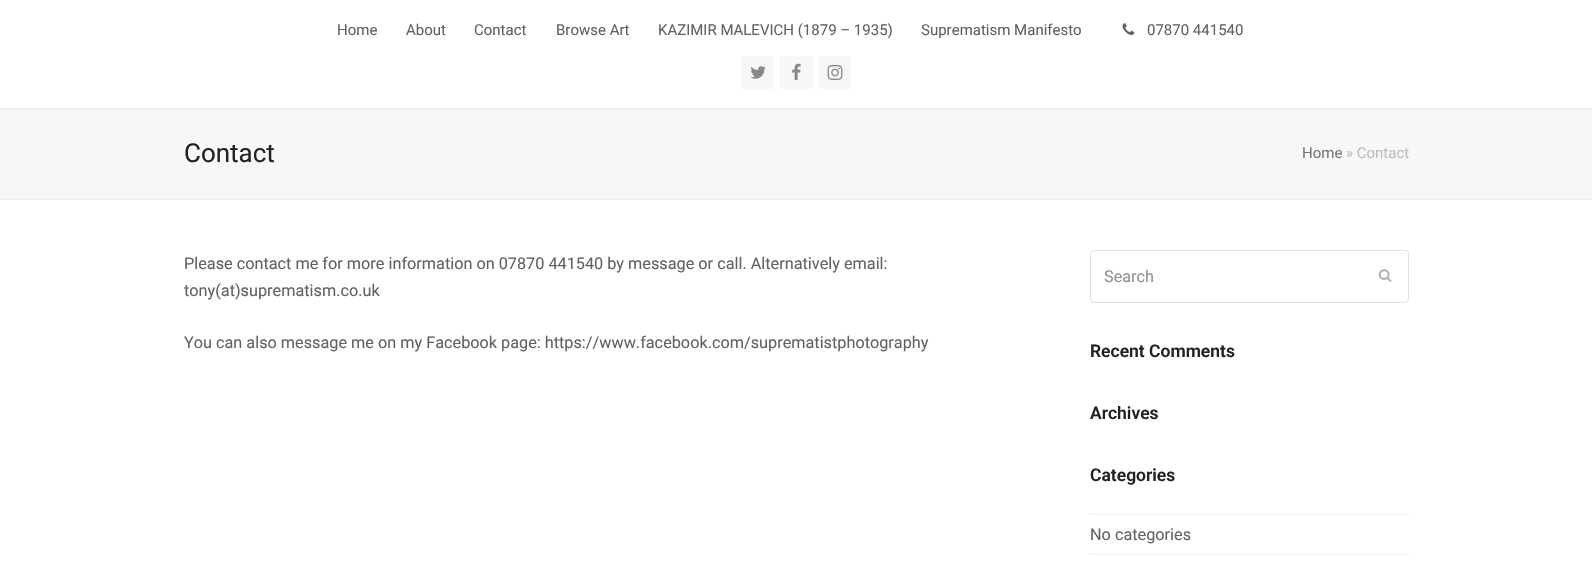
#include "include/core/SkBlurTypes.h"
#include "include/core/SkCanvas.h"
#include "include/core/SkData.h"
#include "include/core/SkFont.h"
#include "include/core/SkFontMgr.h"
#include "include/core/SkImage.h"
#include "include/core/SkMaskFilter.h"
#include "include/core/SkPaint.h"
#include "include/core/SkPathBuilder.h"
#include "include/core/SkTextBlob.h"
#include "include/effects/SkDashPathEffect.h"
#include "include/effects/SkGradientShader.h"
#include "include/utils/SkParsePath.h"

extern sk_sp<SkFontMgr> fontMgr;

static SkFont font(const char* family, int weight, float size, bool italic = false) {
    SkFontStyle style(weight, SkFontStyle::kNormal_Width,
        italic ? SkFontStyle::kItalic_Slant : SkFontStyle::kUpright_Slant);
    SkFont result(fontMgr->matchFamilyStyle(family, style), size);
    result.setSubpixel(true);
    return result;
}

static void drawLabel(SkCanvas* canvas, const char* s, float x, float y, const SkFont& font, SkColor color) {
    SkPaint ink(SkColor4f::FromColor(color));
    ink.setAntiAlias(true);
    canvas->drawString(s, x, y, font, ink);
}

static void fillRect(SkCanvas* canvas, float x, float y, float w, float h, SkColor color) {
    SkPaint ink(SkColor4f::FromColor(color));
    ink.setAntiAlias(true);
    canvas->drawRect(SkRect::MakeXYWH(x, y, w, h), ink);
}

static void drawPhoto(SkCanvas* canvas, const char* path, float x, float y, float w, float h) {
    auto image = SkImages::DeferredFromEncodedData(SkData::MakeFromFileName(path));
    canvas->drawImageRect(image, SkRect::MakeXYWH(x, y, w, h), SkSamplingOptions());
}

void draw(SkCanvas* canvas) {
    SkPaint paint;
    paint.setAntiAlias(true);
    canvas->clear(0xFFFFFFFF);
    fillRect(canvas, 0, 108, 1592, 2, 0xFFEEEEEE);
    SkFont font1 = font("Roboto", 400, 15);
    drawLabel(canvas, "Home", 337, 35, font1, 0xFF616161);
    drawLabel(canvas, "About", 406, 35, font1, 0xFF616161);
    drawLabel(canvas, "Contact", 474, 35, font1, 0xFF616161);
    drawLabel(canvas, "Browse Art", 556, 35, font1, 0xFF616161);
    drawLabel(canvas, "KAZIMIR MALEVICH (1879 – 1935)", 658, 35, font1, 0xFF616161);
    drawLabel(canvas, "Suprematism Manifesto", 921, 35, font1, 0xFF616161);
    drawPhoto(canvas, "assets/img1.png", 1122, 23, 13, 12);
    drawLabel(canvas, "07870 441540", 1147, 35, font1, 0xFF616161);
    fillRect(canvas, 741, 56, 33, 33, 0xFFF7F7F7);
    drawPhoto(canvas, "assets/img2.png", 750, 66, 16, 13);
    fillRect(canvas, 780, 56, 33, 33, 0xFFF7F7F7);
    drawPhoto(canvas, "assets/img3.png", 792, 63, 9, 17);
    fillRect(canvas, 819, 56, 32, 33, 0xFFF7F7F7);
    drawPhoto(canvas, "assets/img4.png", 827, 65, 16, 15);
    fillRect(canvas, 0, 110, 1592, 89, 0xFFF7F7F7);
    fillRect(canvas, 0, 199, 1592, 1, 0xFFEEEEEE);
    SkFont font2 = font("Roboto", 400, 26);
    drawLabel(canvas, "Contact", 184, 162, font2, 0xFF222222);
    drawLabel(canvas, "Home", 1302, 158, font1, 0xFF777777);
    drawLabel(canvas, "» Contact", 1346, 158, font1, 0xFFBCBCBC);
    SkFont font3 = font("Roboto", 400, 16.25f);
    drawLabel(canvas, "Please contact me for more information on 07870 441540 by message or call. Alternatively email:", 184, 269, font3, 0xFF616161);
    drawLabel(canvas, "tony(at)suprematism.co.uk", 184, 296, font3, 0xFF616161);
    drawLabel(canvas, "You can also message me on my Facebook page: https://www.facebook.com/suprematistphotography", 184, 348, font3, 0xFF616161);
    paint.setStroke(true);
    paint.setStrokeWidth(1);
    paint.setColor(0xFFE1E1E1);
    canvas->drawRoundRect(SkRect::MakeXYWH(1090.5f, 250.5f, 318, 52), 3.5f, 3.5f, paint);
    drawLabel(canvas, "Search", 1104, 282, font3, 0xFF909090);
    drawPhoto(canvas, "assets/img5.png", 1378, 269, 14, 13);
    SkFont font4 = font("Roboto", 600, 17.5f);
    drawLabel(canvas, "Recent Comments", 1090, 357, font4, 0xFF222222);
    drawLabel(canvas, "Archives", 1090, 419, font4, 0xFF222222);
    drawLabel(canvas, "Categories", 1090, 481, font4, 0xFF222222);
    fillRect(canvas, 1090, 514, 319, 1, 0xFFEEEEEE);
    fillRect(canvas, 1090, 554, 319, 1, 0xFFEEEEEE);
    drawLabel(canvas, "No categories", 1090, 540, font3, 0xFF616161);
}
